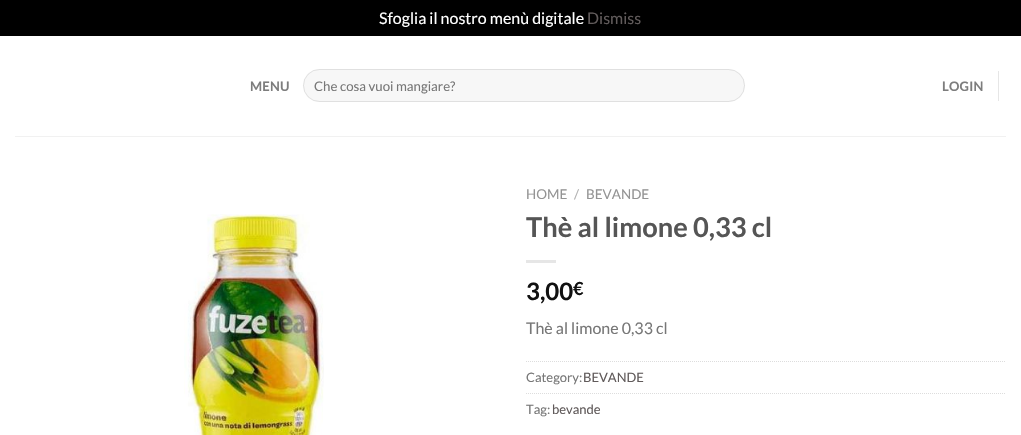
#include "include/core/SkBlurTypes.h"
#include "include/core/SkCanvas.h"
#include "include/core/SkData.h"
#include "include/core/SkFont.h"
#include "include/core/SkFontMgr.h"
#include "include/core/SkImage.h"
#include "include/core/SkMaskFilter.h"
#include "include/core/SkPaint.h"
#include "include/core/SkPathBuilder.h"
#include "include/core/SkTextBlob.h"
#include "include/effects/SkDashPathEffect.h"
#include "include/effects/SkGradientShader.h"
#include "include/utils/SkParsePath.h"

extern sk_sp<SkFontMgr> fontMgr;

static SkFont font(const char* family, int weight, float size, bool italic = false) {
    SkFontStyle style(weight, SkFontStyle::kNormal_Width,
        italic ? SkFontStyle::kItalic_Slant : SkFontStyle::kUpright_Slant);
    SkFont result(fontMgr->matchFamilyStyle(family, style), size);
    result.setSubpixel(true);
    return result;
}

static void drawLabel(SkCanvas* canvas, const char* s, float x, float y, const SkFont& font, SkColor color) {
    SkPaint ink(SkColor4f::FromColor(color));
    ink.setAntiAlias(true);
    canvas->drawString(s, x, y, font, ink);
}

static void drawTracked(SkCanvas* canvas, const char* s, float x, float y, const SkFont& font, const SkPaint& ink, float letter, float word) {
    std::vector<SkGlyphID> glyphs(font.countText(s, strlen(s), SkTextEncoding::kUTF8));
    std::vector<float> xs(glyphs.size());
    font.textToGlyphs(s, strlen(s), SkTextEncoding::kUTF8, glyphs);
    font.getXPos(glyphs, xs, x);
    float extra = 0;
    for (size_t i = 0; i < glyphs.size(); i++) {
        xs[i] += extra;
        extra += letter + word * (glyphs[i] == font.unicharToGlyph(' '));
    }
    canvas->drawTextBlob(SkTextBlob::MakeFromPosHGlyphs(glyphs, xs, y, font), 0, 0, ink);
}

static void fillRect(SkCanvas* canvas, float x, float y, float w, float h, SkColor color) {
    SkPaint ink(SkColor4f::FromColor(color));
    ink.setAntiAlias(true);
    canvas->drawRect(SkRect::MakeXYWH(x, y, w, h), ink);
}

static void fillRRect(SkCanvas* canvas, float x, float y, float w, float h, float radius, SkColor color) {
    SkPaint ink(SkColor4f::FromColor(color));
    ink.setAntiAlias(true);
    canvas->drawRoundRect(SkRect::MakeXYWH(x, y, w, h), radius, radius, ink);
}

static void drawPhoto(SkCanvas* canvas, const char* path, float x, float y, float w, float h) {
    auto image = SkImages::DeferredFromEncodedData(SkData::MakeFromFileName(path));
    canvas->drawImageRect(image, SkRect::MakeXYWH(x, y, w, h), SkSamplingOptions());
}

static SkPath parsePath(const char* data, bool evenOdd = false) {
    SkPath result = *SkParsePath::FromSVGString(data);
    if (evenOdd) result.setFillType(SkPathFillType::kEvenOdd);
    return result;
}

void draw(SkCanvas* canvas) {
    SkPaint paint;
    paint.setAntiAlias(true);
    canvas->clear(0xFF000000);
    SkFont font1 = font("Lato", 400, 16);
    drawLabel(canvas, "Sfoglia il nostro menù digitale", 379, 24, font1, 0xFFFFFFFF);
    drawLabel(canvas, "Dismiss", 587, 24, font1, 0xFF615B5B);
    fillRect(canvas, 0, 36, 1021, 399, 0xFFFFFFFF);
    SkFont font2 = font("Lato", 700, 13);
    paint.setColor(0xFF7D7D7D);
    drawTracked(canvas, "MENU", 250, 91, font2, paint, 0.25f, 0);
    fillRRect(canvas, 303, 69, 442, 33, 16.5f, 0xFFF7F7F7);
    paint.setStroke(true);
    paint.setStrokeWidth(1);
    paint.setColor(0x17000000);
    canvas->drawRoundRect(SkRect::MakeXYWH(303.5f, 69.5f, 441, 32), 16, 16, paint);
    SkFont font3 = font("Lato", 400, 13.25f);
    drawLabel(canvas, "Che cosa vuoi mangiare?", 314, 91, font3, 0xFF777777);
    paint.setStroke(false);
    paint.setColor(0xFF7D7D7D);
    drawTracked(canvas, "LOGIN", 942, 91, font2, paint, 0.25f, 0);
    fillRect(canvas, 998, 71, 1, 30, 0xFFE6E6E6);
    fillRect(canvas, 15, 136, 991, 1, 0xFFF1F1F1);
    drawPhoto(canvas, "assets/img1.png", 184, 214, 140, 221);
    SkFont font4 = font("Lato", 400, 13.5f);
    drawLabel(canvas, "HOME", 526, 199, font4, 0xFF949494);
    drawLabel(canvas, "/", 574, 199, font4, 0xFFB2B2B2);
    drawLabel(canvas, "BEVANDE", 586, 199, font4, 0xFF949494);
    SkFont font5 = font("Lato", 700, 27.25f);
    drawLabel(canvas, "Thè al limone 0,33 cl", 526, 237, font5, 0xFF555555);
    fillRect(canvas, 526, 260, 30, 3, 0xFFE6E6E6);
    SkFont font6 = font("Lato", 700, 24);
    drawLabel(canvas, "3,00", 526, 300, font6, 0xFF111111);
    SkFont font7 = font("Lato", 700, 18);
    drawLabel(canvas, "€", 573, 295, font7, 0xFF111111);
    drawLabel(canvas, "Thè al limone 0,33 cl", 526, 334, font1, 0xFF777777);
    paint.setStroke(true);
    paint.setColor(0xFFDDDDDD);
    paint.setPathEffect(SkDashPathEffect::Make({{1, 1}}, 0));
    canvas->drawPath(parsePath("M526 361.5H1006"), paint);
    paint.setPathEffect(nullptr);
    SkFont font8 = font("Lato", 400, 13);
    drawLabel(canvas, "Category:", 526, 382, font8, 0xFF777777);
    drawLabel(canvas, "BEVANDE", 583, 382, font8, 0xFF615B5B);
    paint.setPathEffect(SkDashPathEffect::Make({{1, 1}}, 0));
    canvas->drawPath(parsePath("M526 393.5H1006"), paint);
    paint.setPathEffect(nullptr);
    drawLabel(canvas, "Tag:", 526, 414, font8, 0xFF777777);
    drawLabel(canvas, "bevande", 552, 414, font8, 0xFF615B5B);
}
